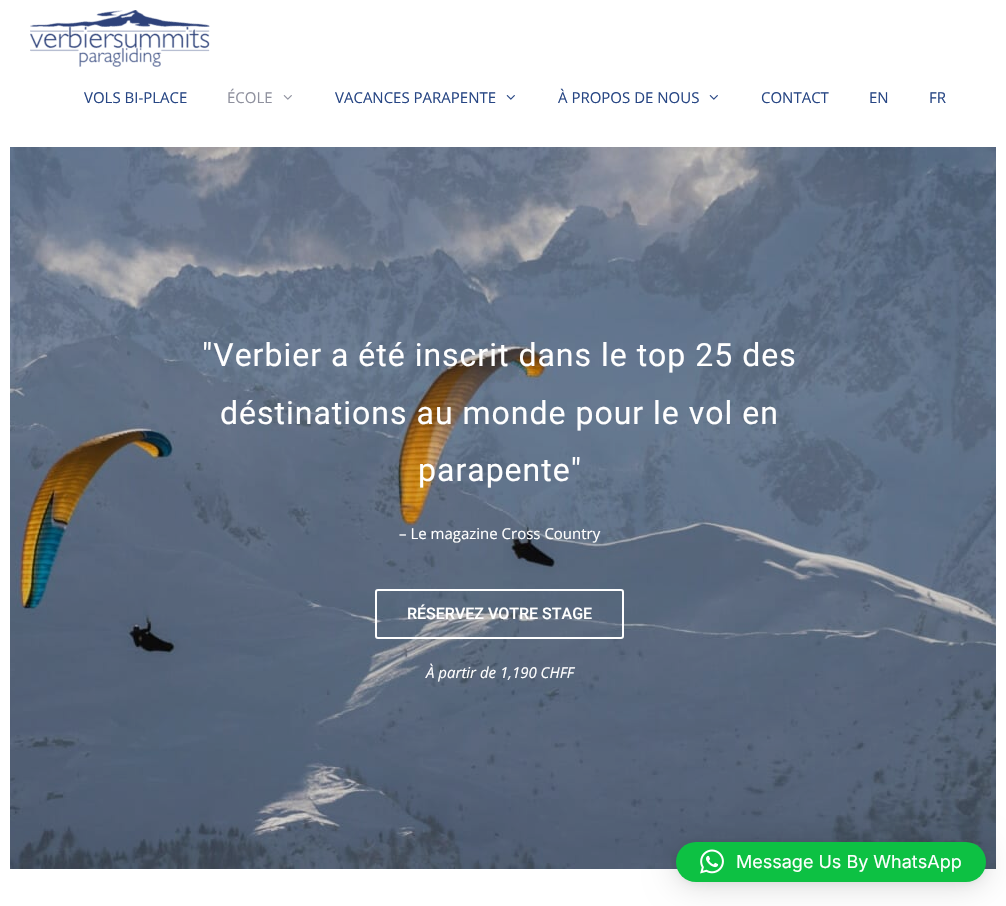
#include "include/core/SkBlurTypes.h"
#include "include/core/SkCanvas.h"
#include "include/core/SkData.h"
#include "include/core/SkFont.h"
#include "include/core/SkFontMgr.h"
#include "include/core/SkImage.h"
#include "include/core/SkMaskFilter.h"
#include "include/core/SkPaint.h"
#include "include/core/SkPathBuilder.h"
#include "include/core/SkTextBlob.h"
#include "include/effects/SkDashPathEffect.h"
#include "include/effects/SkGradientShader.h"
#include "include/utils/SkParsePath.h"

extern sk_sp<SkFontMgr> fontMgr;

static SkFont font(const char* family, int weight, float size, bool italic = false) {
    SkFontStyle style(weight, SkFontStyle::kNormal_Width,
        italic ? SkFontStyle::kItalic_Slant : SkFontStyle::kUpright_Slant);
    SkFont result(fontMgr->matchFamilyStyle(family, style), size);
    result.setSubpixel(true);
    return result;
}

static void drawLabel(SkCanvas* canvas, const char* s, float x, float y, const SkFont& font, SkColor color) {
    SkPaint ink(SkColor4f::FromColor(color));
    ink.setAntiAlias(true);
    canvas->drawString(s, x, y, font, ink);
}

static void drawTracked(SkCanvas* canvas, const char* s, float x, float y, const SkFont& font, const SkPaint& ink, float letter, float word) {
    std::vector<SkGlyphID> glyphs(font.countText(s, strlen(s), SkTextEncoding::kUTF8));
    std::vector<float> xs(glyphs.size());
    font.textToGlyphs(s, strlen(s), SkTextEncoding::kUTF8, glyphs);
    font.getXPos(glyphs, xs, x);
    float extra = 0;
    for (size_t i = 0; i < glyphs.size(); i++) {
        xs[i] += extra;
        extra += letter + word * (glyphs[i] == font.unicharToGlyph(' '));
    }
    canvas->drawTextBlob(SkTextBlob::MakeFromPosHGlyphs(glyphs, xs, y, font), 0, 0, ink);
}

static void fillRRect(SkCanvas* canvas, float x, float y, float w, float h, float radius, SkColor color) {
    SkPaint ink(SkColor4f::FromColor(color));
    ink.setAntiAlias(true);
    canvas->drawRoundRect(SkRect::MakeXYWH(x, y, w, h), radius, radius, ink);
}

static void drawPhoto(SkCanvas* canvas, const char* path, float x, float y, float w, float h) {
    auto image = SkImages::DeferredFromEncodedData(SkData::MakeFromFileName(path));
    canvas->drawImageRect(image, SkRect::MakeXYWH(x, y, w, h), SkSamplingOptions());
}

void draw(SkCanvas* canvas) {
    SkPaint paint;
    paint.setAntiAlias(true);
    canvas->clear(0xFFFFFFFF);
    drawPhoto(canvas, "assets/img1.png", 30, 10, 180, 57);
    SkFont font1 = font("Open Sans", 400, 15);
    drawLabel(canvas, "VOLS BI-PLACE", 84, 103, font1, 0xFF274684);
    drawLabel(canvas, "ÉCOLE", 227, 103, font1, 0xFF8F919E);
    drawPhoto(canvas, "assets/img2.png", 283, 95, 9, 5);
    drawLabel(canvas, "VACANCES PARAPENTE", 335, 103, font1, 0xFF274684);
    drawPhoto(canvas, "assets/img3.png", 506, 95, 9, 5);
    drawLabel(canvas, "À PROPOS DE NOUS", 558, 103, font1, 0xFF274684);
    drawPhoto(canvas, "assets/img3.png", 709, 95, 9, 5);
    drawLabel(canvas, "CONTACT", 761, 103, font1, 0xFF274684);
    drawLabel(canvas, "EN", 869, 103, font1, 0xFF274684);
    drawLabel(canvas, "FR", 929, 103, font1, 0xFF274684);
    drawPhoto(canvas, "assets/img4.png", 10, 147, 986, 722);
    SkFont font2 = font("Roboto", 400, 32);
    paint.setColor(0xFFFFFFFF);
    drawTracked(canvas, "\"Verbier a été inscrit dans le top 25 des", 202, 366, font2, paint, 1, 0);
    drawTracked(canvas, "déstinations au monde pour le vol en", 220, 424, font2, paint, 1, 0);
    drawTracked(canvas, "parapente\"", 418, 481, font2, paint, 1, 0);
    drawLabel(canvas, "– Le magazine Cross Country", 399, 539, font1, 0xFFFFFFFF);
    paint.setStroke(true);
    paint.setStrokeWidth(2);
    canvas->drawRoundRect(SkRect::MakeXYWH(376, 590, 247, 48), 2, 2, paint);
    SkFont font3 = font("Roboto", 500, 16);
    drawLabel(canvas, "RÉSERVEZ VOTRE STAGE", 407, 619, font3, 0xFFFFFFFF);
    SkFont font4 = font("Open Sans", 400, 15, true);
    drawLabel(canvas, "À partir de 1,190 CHFF", 426, 678, font4, 0xFFFFFFFF);
    paint.setStroke(false);
    paint.setColor(0x29000000);
    paint.setMaskFilter(SkMaskFilter::MakeBlur(kNormal_SkBlurStyle, 16));
    canvas->drawRoundRect(SkRect::MakeXYWH(676, 844, 310, 40), 20, 20, paint);
    paint.setMaskFilter(nullptr);
    paint.setColor(0x0F000000);
    paint.setMaskFilter(SkMaskFilter::MakeBlur(kNormal_SkBlurStyle, 3));
    canvas->drawRoundRect(SkRect::MakeXYWH(676, 843, 310, 40), 20, 20, paint);
    paint.setMaskFilter(nullptr);
    fillRRect(canvas, 676, 842, 310, 40, 20, 0xFF0DC143);
    drawPhoto(canvas, "assets/img5.png", 700, 849, 24, 25);
    SkFont font5 = font("Inter", 400, 18);
    drawLabel(canvas, "Message Us By WhatsApp", 736, 868, font5, 0xFFFFFFFF);
}
